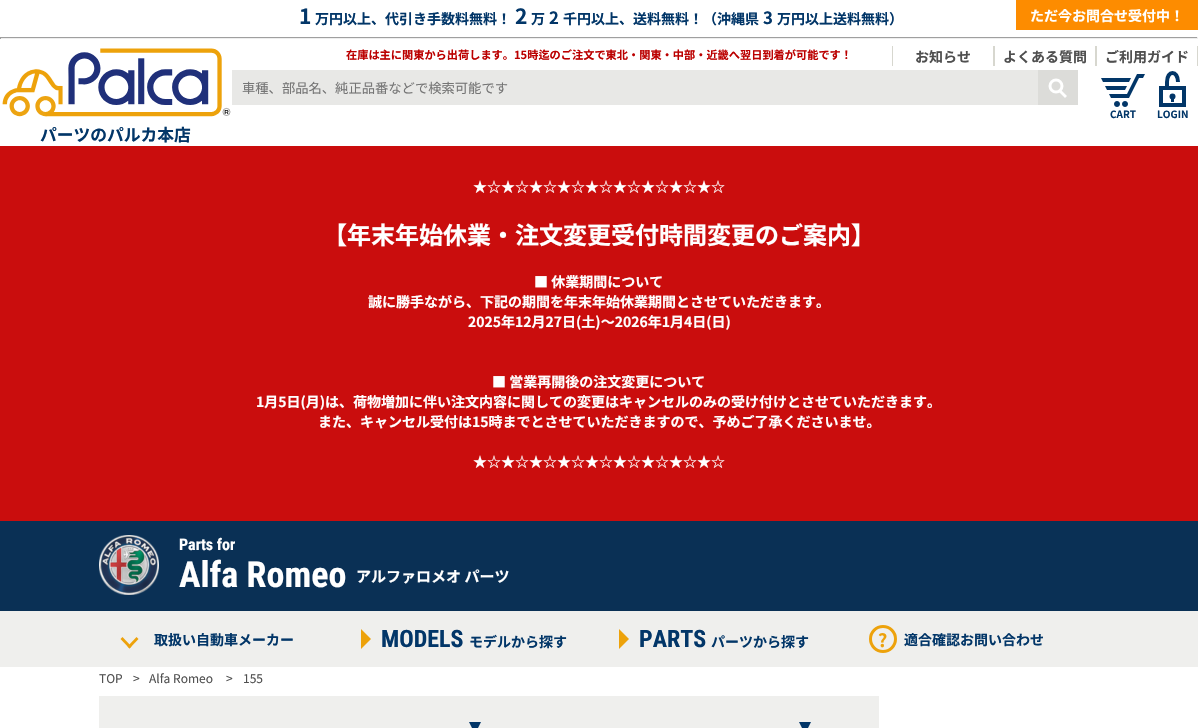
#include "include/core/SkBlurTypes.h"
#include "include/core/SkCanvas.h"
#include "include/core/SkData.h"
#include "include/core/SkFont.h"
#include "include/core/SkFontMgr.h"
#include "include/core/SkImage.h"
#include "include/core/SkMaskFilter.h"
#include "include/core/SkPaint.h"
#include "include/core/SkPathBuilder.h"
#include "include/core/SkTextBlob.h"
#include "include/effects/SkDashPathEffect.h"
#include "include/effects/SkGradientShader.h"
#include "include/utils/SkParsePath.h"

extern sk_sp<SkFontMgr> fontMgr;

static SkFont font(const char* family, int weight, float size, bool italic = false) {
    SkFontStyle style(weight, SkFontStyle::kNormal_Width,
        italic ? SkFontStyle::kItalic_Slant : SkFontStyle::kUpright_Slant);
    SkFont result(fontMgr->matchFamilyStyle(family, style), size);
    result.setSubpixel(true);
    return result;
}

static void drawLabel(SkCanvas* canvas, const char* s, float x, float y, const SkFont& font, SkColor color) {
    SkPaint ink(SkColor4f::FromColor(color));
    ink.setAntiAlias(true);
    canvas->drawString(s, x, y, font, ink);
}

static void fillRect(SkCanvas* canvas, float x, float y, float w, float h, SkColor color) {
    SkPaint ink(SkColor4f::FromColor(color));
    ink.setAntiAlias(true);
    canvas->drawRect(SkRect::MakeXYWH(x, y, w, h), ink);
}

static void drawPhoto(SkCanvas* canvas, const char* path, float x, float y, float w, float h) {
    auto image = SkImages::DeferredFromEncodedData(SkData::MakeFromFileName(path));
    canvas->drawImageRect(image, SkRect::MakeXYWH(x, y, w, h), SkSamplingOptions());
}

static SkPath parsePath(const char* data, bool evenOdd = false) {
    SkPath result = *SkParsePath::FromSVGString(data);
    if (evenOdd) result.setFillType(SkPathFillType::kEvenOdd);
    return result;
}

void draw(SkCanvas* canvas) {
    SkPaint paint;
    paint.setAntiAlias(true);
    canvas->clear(0xFFFFFFFF);
    SkFont font1 = font("Noto Sans JP", 700, 21);
    drawLabel(canvas, "1", 299, 24, font1, 0xFF023668);
    SkFont font2 = font("Noto Sans JP", 700, 14);
    drawLabel(canvas, "万円以上、代引き手数料無料！", 315, 24, font2, 0xFF023668);
    drawLabel(canvas, "2", 515, 24, font1, 0xFF023668);
    drawLabel(canvas, "万", 531, 24, font2, 0xFF023668);
    SkFont font3 = font("Noto Sans JP", 700, 16.75f);
    drawLabel(canvas, "2", 549, 24, font3, 0xFF023668);
    drawLabel(canvas, "千円以上、送料無料！（沖縄県", 563, 24, font2, 0xFF023668);
    drawLabel(canvas, "3", 763, 24, font3, 0xFF023668);
    drawLabel(canvas, "万円以上送料無料）", 777, 24, font2, 0xFF023668);
    fillRect(canvas, 0, 37, 1198, 1, 0xFF9F9F9F);
    fillRect(canvas, 1197, 37, 1, 2, 0xFFEEEEEE);
    fillRect(canvas, 0, 38, 1198, 1, 0xFFEEEEEE);
    fillRect(canvas, 0, 37, 1, 2, 0xFF9F9F9F);
    fillRect(canvas, 1016, 0, 182, 30, 0xFFFD8C00);
    drawLabel(canvas, "ただ今お問合せ受付中！", 1030, 21, font2, 0xFFFFFFFF);
    SkFont font4 = font("Noto Sans JP", 700, 11.2f);
    drawLabel(canvas, "在庫は主に関東から出荷します。15時迄のご注文で東北・関東・中部・近畿へ翌日到着が可能です！", 346, 59, font4, 0xFFBB0000);
    fillRect(canvas, 892, 46, 1, 20, 0xFFD7D7CF);
    drawLabel(canvas, "お知らせ", 915, 62, font2, 0xFF4F4F4F);
    fillRect(canvas, 993, 46, 2, 20, 0xFFD7D7CF);
    drawLabel(canvas, "よくある質問", 1003, 62, font2, 0xFF4F4F4F);
    fillRect(canvas, 1197, 46, 1, 20, 0xFFD7D7CF);
    fillRect(canvas, 1095, 46, 2, 20, 0xFFD7D7CF);
    drawLabel(canvas, "ご利用ガイド", 1105, 62, font2, 0xFF4F4F4F);
    fillRect(canvas, 232, 70, 806, 35, 0xFFE8E8E6);
    SkFont font5 = font("Noto Sans JP", 400, 13.3f);
    drawLabel(canvas, "車種、部品名、純正品番などで検索可能です", 242, 93, font5, 0xFF757575);
    fillRect(canvas, 1038, 70, 40, 35, 0xFFDCDCD9);
    paint.setStroke(true);
    paint.setStrokeWidth(3);
    paint.setColor(0xFFFFFFFF);
    canvas->drawCircle(1056, 86, 6, paint);
    paint.setStroke(false);
    canvas->drawPath(parsePath("M1060 89L1067 96L1065 98L1058 91Z"), paint);
    drawPhoto(canvas, "assets/img1.png", 1101, 74, 44, 33);
    SkFont font6 = font("Noto Sans JP", 700, 10);
    drawLabel(canvas, "CART", 1110, 118, font6, 0xFF023668);
    drawLabel(canvas, "LOGIN", 1157, 118, font6, 0xFF023668);
    paint.setStroke(true);
    paint.setStrokeWidth(4);
    paint.setColor(0xFF023668);
    canvas->drawPath(parsePath("M1167 88V82C1167 70 1178 70 1178 82"), paint);
    canvas->drawRect(SkRect::MakeXYWH(1161, 88, 23, 17), paint);
    paint.setStroke(false);
    canvas->drawCircle(1172.5f, 96.5f, 3, paint);
    fillRect(canvas, 1171, 97, 3, 5, 0xFF023668);
    drawPhoto(canvas, "assets/img2.png", 2, 48, 229, 69);
    drawLabel(canvas, "パーツのパルカ本店", 40, 141, font3, 0xFF023668);
    fillRect(canvas, 0, 146, 1198, 375, 0xFFCA0D0D);
    drawLabel(canvas, "★☆★☆★☆★☆★☆★☆★☆★☆★☆", 473, 192, font2, 0xFFFFFFFF);
    SkFont font7 = font("Noto Sans JP", 700, 24);
    drawLabel(canvas, "【年末年始休業・注文変更受付時間変更のご案内】", 323, 244, font7, 0xFFFFFFFF);
    drawLabel(canvas, "■ 休業期間について", 534, 287, font2, 0xFFFFFFFF);
    drawLabel(canvas, "誠に勝手ながら、下記の期間を年末年始休業期間とさせていただきます。", 368, 307, font2, 0xFFFFFFFF);
    drawLabel(canvas, "2025年12月27日(土)～2026年1月4日(日)", 468, 327, font2, 0xFFFFFFFF);
    drawLabel(canvas, "■ 営業再開後の注文変更について", 492, 387, font2, 0xFFFFFFFF);
    drawLabel(canvas, "1月5日(月)は、荷物増加に伴い注文内容に関しての変更はキャンセルのみの受け付けとさせていただきます。", 256, 407, font2, 0xFFFFFFFF);
    drawLabel(canvas, "また、キャンセル受付は15時までとさせていただきますので、予めご了承くださいませ。", 318, 427, font2, 0xFFFFFFFF);
    drawLabel(canvas, "★☆★☆★☆★☆★☆★☆★☆★☆★☆", 473, 467, font2, 0xFFFFFFFF);
    fillRect(canvas, 0, 521, 1198, 90, 0xFF0A3055);
    drawPhoto(canvas, "assets/img3.png", 99, 535, 60, 60);
    SkFont font8 = font("Roboto Condensed", 700, 16);
    drawLabel(canvas, "Parts for", 179, 550, font8, 0xFFFFFFFF);
    SkFont font9 = font("Roboto Condensed", 700, 36);
    drawLabel(canvas, "Alfa Romeo", 179, 587, font9, 0xFFFFFFFF);
    SkFont font10 = font("Noto Sans JP", 700, 15);
    drawLabel(canvas, "アルファロメオ パーツ", 356, 582, font10, 0xFFFFFFFF);
    fillRect(canvas, 0, 611, 1198, 56, 0xFFEFEFED);
    paint.setColor(0xFFEDA20B);
    canvas->drawPath(parsePath("M136.5 637L138.5 639L129.5 648.5L127.5 646.5Z"), paint);
    canvas->drawPath(parsePath("M122.5 637L131.5 646.5L129.5 648.5L120.5 639Z"), paint);
    drawLabel(canvas, "取扱い自動車メーカー", 154, 645, font2, 0xFF023668);
    canvas->drawPath(parsePath("M361 649V629L371 639Z"), paint);
    SkFont font11 = font("Roboto Condensed", 700, 24);
    drawLabel(canvas, "MODELS", 381, 647, font11, 0xFF023668);
    drawLabel(canvas, "モデルから探す", 469, 647, font2, 0xFF023668);
    canvas->drawPath(parsePath("M619 649V629L629 639Z"), paint);
    drawLabel(canvas, "PARTS", 639, 647, font11, 0xFF023668);
    drawLabel(canvas, "パーツから探す", 711, 647, font2, 0xFF023668);
    paint.setStroke(true);
    paint.setStrokeWidth(3);
    canvas->drawCircle(883, 639, 12.5f, paint);
    SkFont font12 = font("Noto Sans JP", 700, 18);
    drawLabel(canvas, "?", 878, 647, font12, 0xFFEDA20B);
    drawLabel(canvas, "適合確認お問い合わせ", 904, 645, font2, 0xFF023668);
    SkFont font13 = font("Noto Sans JP", 400, 12);
    drawLabel(canvas, "TOP", 99, 683, font13, 0xFF4F4F4F);
    drawLabel(canvas, ">", 133, 683, font13, 0xFF4F4F4F);
    drawLabel(canvas, "Alfa Romeo", 149, 683, font13, 0xFF4F4F4F);
    drawLabel(canvas, ">", 226, 683, font13, 0xFF4F4F4F);
    drawLabel(canvas, "155", 243, 683, font13, 0xFF4F4F4F);
    fillRect(canvas, 99, 696, 780, 32, 0xFFEFEFED);
    paint.setStroke(false);
    paint.setColor(0xFF023668);
    canvas->drawPath(parsePath("M469 722H481L475 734Z"), paint);
    canvas->drawPath(parsePath("M799 722H811L805 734Z"), paint);
}
